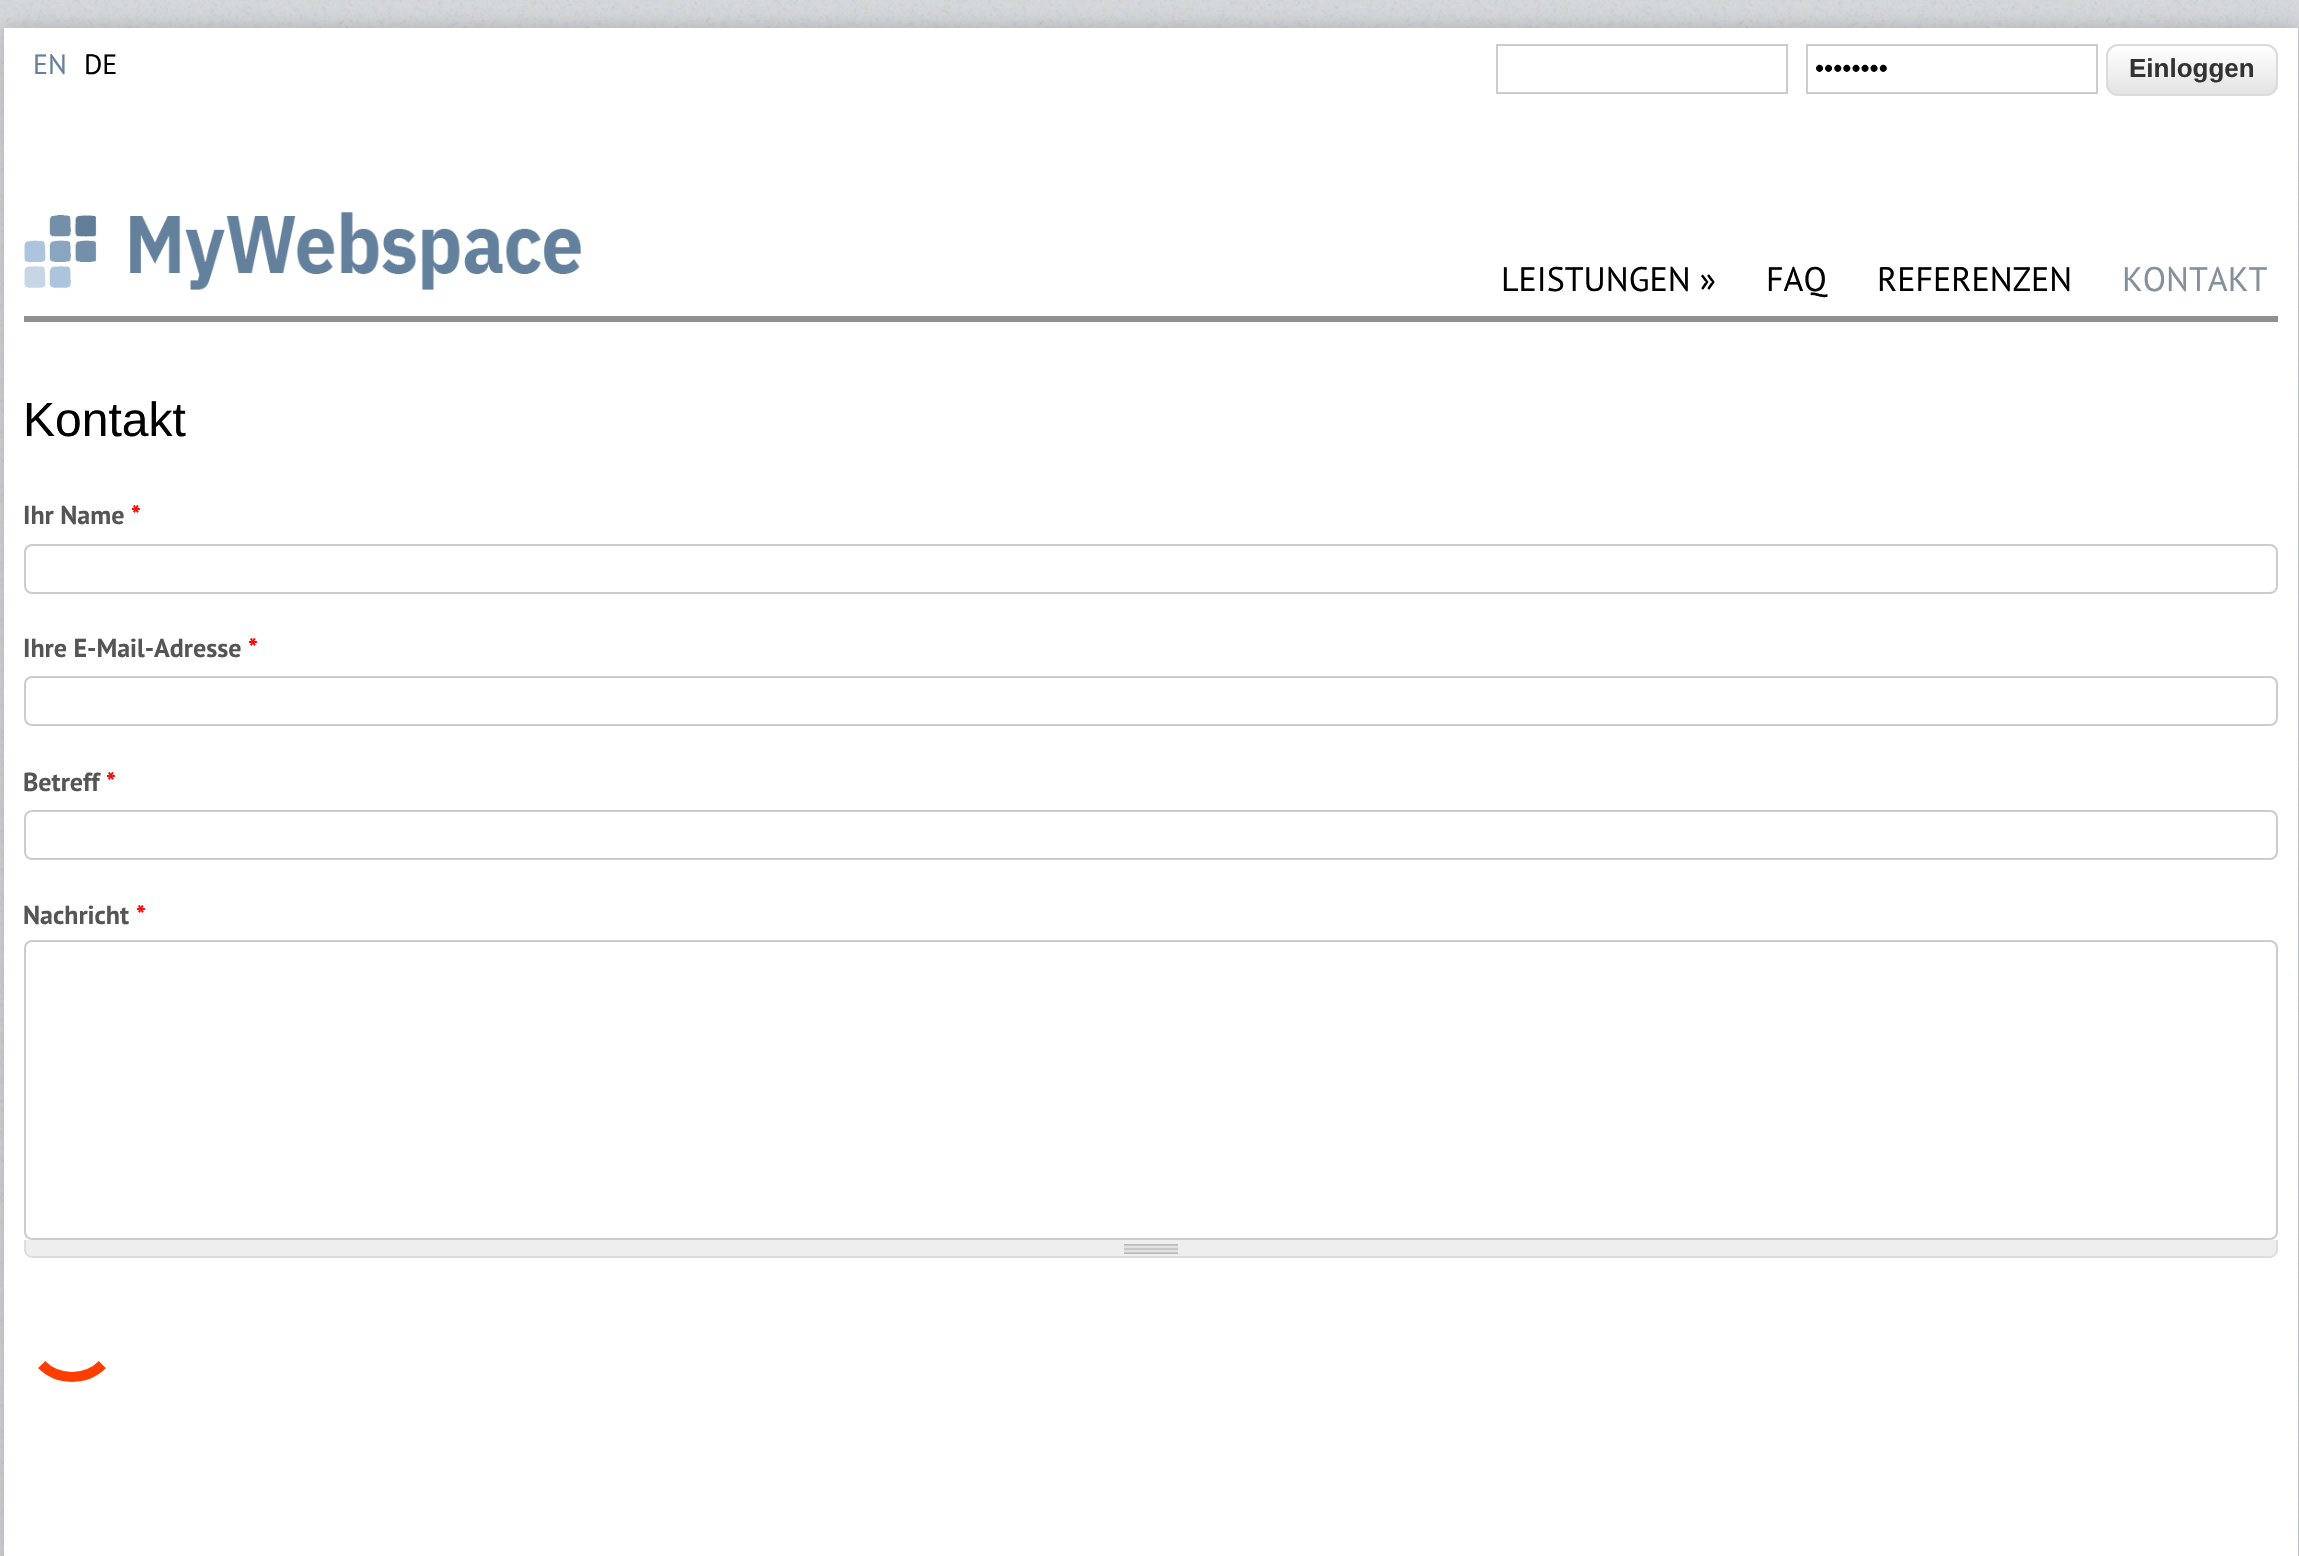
#include "include/core/SkBlurTypes.h"
#include "include/core/SkCanvas.h"
#include "include/core/SkData.h"
#include "include/core/SkFont.h"
#include "include/core/SkFontMgr.h"
#include "include/core/SkImage.h"
#include "include/core/SkMaskFilter.h"
#include "include/core/SkPaint.h"
#include "include/core/SkPathBuilder.h"
#include "include/core/SkTextBlob.h"
#include "include/effects/SkDashPathEffect.h"
#include "include/effects/SkGradientShader.h"
#include "include/utils/SkParsePath.h"

extern sk_sp<SkFontMgr> fontMgr;

static SkFont font(const char* family, int weight, float size, bool italic = false) {
    SkFontStyle style(weight, SkFontStyle::kNormal_Width,
        italic ? SkFontStyle::kItalic_Slant : SkFontStyle::kUpright_Slant);
    SkFont result(fontMgr->matchFamilyStyle(family, style), size);
    result.setSubpixel(true);
    return result;
}

static void drawLabel(SkCanvas* canvas, const char* s, float x, float y, const SkFont& font, SkColor color) {
    SkPaint ink(SkColor4f::FromColor(color));
    ink.setAntiAlias(true);
    canvas->drawString(s, x, y, font, ink);
}

static void fillRect(SkCanvas* canvas, float x, float y, float w, float h, SkColor color) {
    SkPaint ink(SkColor4f::FromColor(color));
    ink.setAntiAlias(true);
    canvas->drawRect(SkRect::MakeXYWH(x, y, w, h), ink);
}

static void drawPhoto(SkCanvas* canvas, const char* path, float x, float y, float w, float h) {
    auto image = SkImages::DeferredFromEncodedData(SkData::MakeFromFileName(path));
    canvas->drawImageRect(image, SkRect::MakeXYWH(x, y, w, h), SkSamplingOptions());
}

static SkPath parsePath(const char* data, bool evenOdd = false) {
    SkPath result = *SkParsePath::FromSVGString(data);
    if (evenOdd) result.setFillType(SkPathFillType::kEvenOdd);
    return result;
}

void draw(SkCanvas* canvas) {
    SkPaint paint;
    paint.setAntiAlias(true);
    canvas->clear(0xFFFFFFFF);
    drawPhoto(canvas, "assets/img1.png", 0, 0, 2299, 1556);
    paint.setColor(0x33000000);
    paint.setMaskFilter(SkMaskFilter::MakeBlur(kNormal_SkBlurStyle, 10));
    canvas->drawRect(SkRect::MakeXYWH(4, 28, 2294, 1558), paint);
    paint.setMaskFilter(nullptr);
    fillRect(canvas, 4, 28, 2294, 1528, 0xFFFFFFFF);
    SkFont font1 = font("PT Sans", 400, 28);
    drawLabel(canvas, "EN", 33, 74, font1, 0xFF64809C);
    drawLabel(canvas, "DE", 84, 74, font1, 0xFF000000);
    paint.setStroke(true);
    paint.setStrokeWidth(2);
    paint.setColor(0xFFCCCCCC);
    canvas->drawRect(SkRect::MakeXYWH(1497, 45, 290, 48), paint);
    canvas->drawRect(SkRect::MakeXYWH(1807, 45, 290, 48), paint);
    SkFont font2 = font("Liberation Sans", 400, 26);
    drawLabel(canvas, "••••••••", 1815, 77, font2, 0xFF000000);
    canvas->save();
    canvas->clipPath(parsePath("M2118 44H2266C2272.5 44 2278 49.5 2278 56V84C2278 90.5 2272.5 96 2266 96H2118C2111.5 96 2106 90.5 2106 84V56C2106 49.5 2111.5 44 2118 44Z"), true);
    paint.setStroke(false);
    {
        const SkColor colors[] = {0xFFFFFFFF, 0xFFE3E3E3};
        const float stops[] = {0, 1};
        const SkPoint ends[] = {{2192, 46}, {2192, 94}};
        paint.setShader(SkGradientShader::MakeLinear(ends, colors, stops, 2, SkTileMode::kClamp));
        paint.setAlpha(255);
    }
    canvas->drawRect(SkRect::MakeXYWH(2106, 46, 172, 48), paint);
    canvas->restore();
    paint.setShader(nullptr);
    paint.setColor(0xFFFFFFFF);
    canvas->drawPath(parsePath("M2118 48H2266C2272 48 2276 52 2276 58V56C2276 50 2272 46 2266 46H2118C2112 46 2108 50 2108 56V58C2108 52 2112 48 2118 48Z"), paint);
    paint.setStroke(true);
    paint.setColor(0xFFDBDBDB);
    canvas->drawRoundRect(SkRect::MakeXYWH(2107, 45, 170, 50), 11, 11, paint);
    SkFont font3 = font("Liberation Sans", 700, 26);
    drawLabel(canvas, "Einloggen", 2129, 77, font3, 0xFF333333);
    fillRect(canvas, 24, 316, 2254, 6, 0xFF909090);
    drawPhoto(canvas, "assets/img2.png", 24, 212, 558, 78);
    SkFont font4 = font("PT Sans", 400, 34);
    drawLabel(canvas, "LEISTUNGEN »", 1501, 291, font4, 0xFF000000);
    drawLabel(canvas, "FAQ", 1766, 291, font4, 0xFF000000);
    drawLabel(canvas, "REFERENZEN", 1877, 291, font4, 0xFF000000);
    drawLabel(canvas, "KONTAKT", 2122, 291, font4, 0xFF84909B);
    SkFont font5 = font("Liberation Sans", 400, 48);
    drawLabel(canvas, "Kontakt", 23, 436, font5, 0xFF000000);
    SkFont font6 = font("PT Sans", 700, 26);
    drawLabel(canvas, "Ihr Name", 23, 524, font6, 0xFF555555);
    drawLabel(canvas, "*", 131, 524, font6, 0xFFFF0000);
    paint.setColor(0xFFCCCCCC);
    canvas->drawRoundRect(SkRect::MakeXYWH(25, 545, 2252, 48), 7, 7, paint);
    drawLabel(canvas, "Ihre E-Mail-Adresse", 23, 657, font6, 0xFF555555);
    drawLabel(canvas, "*", 248, 657, font6, 0xFFFF0000);
    canvas->drawRoundRect(SkRect::MakeXYWH(25, 677, 2252, 48), 7, 7, paint);
    drawLabel(canvas, "Betreff", 23, 791, font6, 0xFF555555);
    drawLabel(canvas, "*", 106, 791, font6, 0xFFFF0000);
    canvas->drawRoundRect(SkRect::MakeXYWH(25, 811, 2252, 48), 7, 7, paint);
    drawLabel(canvas, "Nachricht", 23, 924, font6, 0xFF555555);
    drawLabel(canvas, "*", 136, 924, font6, 0xFFFF0000);
    canvas->drawRoundRect(SkRect::MakeXYWH(25, 941, 2252, 298), 7, 7, paint);
    paint.setStroke(false);
    paint.setColor(0xFFEEEEEE);
    canvas->drawPath(parsePath("M26 1240H2276V1250C2276 1253.5 2273.5 1256 2270 1256H32C28.5 1256 26 1253.5 26 1250Z"), paint);
    drawPhoto(canvas, "assets/img3.png", 1124, 1244, 54, 10);
    paint.setColor(0xFFDDDDDD);
    canvas->drawPath(parsePath("M24 1240H2278V1250C2278 1254 2274 1258 2270 1258H32C28 1258 24 1254 24 1250ZM26 1240H2276V1250C2276 1253 2273 1256 2270 1256H32C29 1256 26 1253 26 1250Z", true), paint);
    paint.setStroke(true);
    paint.setStrokeWidth(10);
    paint.setColor(0xFFFF3D00);
    canvas->drawPath(parsePath("M102.5 1364.5C86 1381 58 1381 41.5 1364.5"), paint);
    paint.setColor(0xFFFFFFFF);
    canvas->drawPath(parsePath("M41.5 1364.5C33.5 1356.5 29 1345.5 29 1334C29 1296 75.5 1276.5 102.5 1303.5C108.5 1309.5 112.5 1317.5 114 1325.5C117 1339.5 112.5 1354.5 102.5 1364.5"), paint);
}
